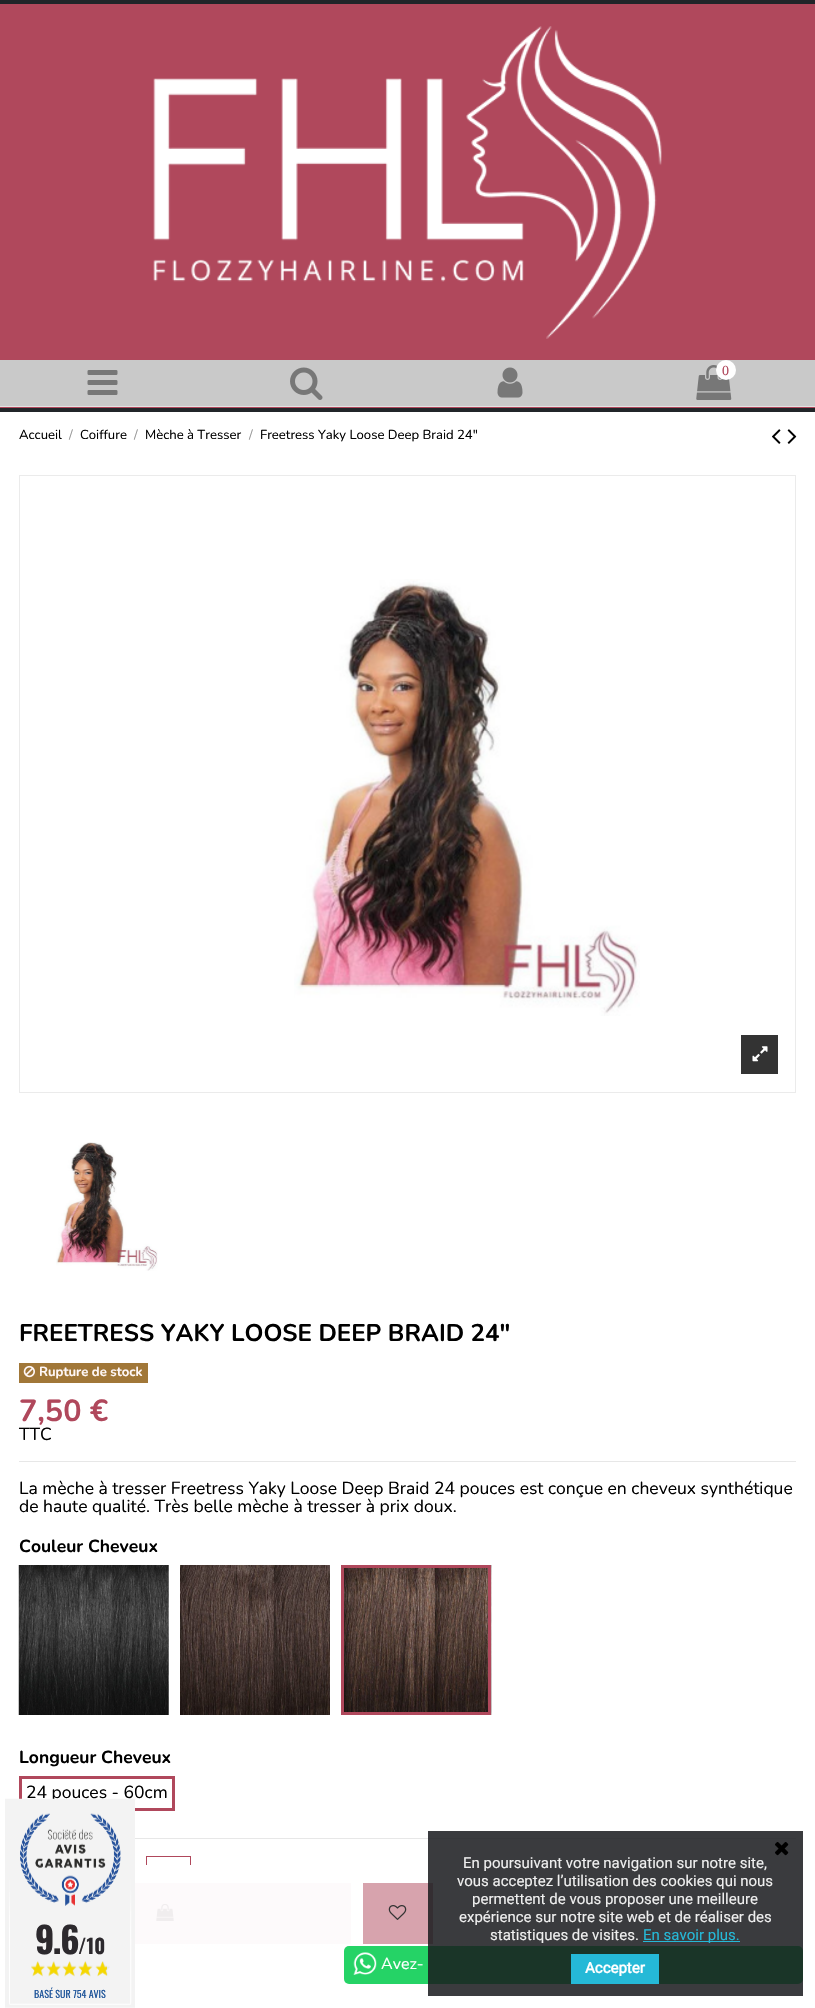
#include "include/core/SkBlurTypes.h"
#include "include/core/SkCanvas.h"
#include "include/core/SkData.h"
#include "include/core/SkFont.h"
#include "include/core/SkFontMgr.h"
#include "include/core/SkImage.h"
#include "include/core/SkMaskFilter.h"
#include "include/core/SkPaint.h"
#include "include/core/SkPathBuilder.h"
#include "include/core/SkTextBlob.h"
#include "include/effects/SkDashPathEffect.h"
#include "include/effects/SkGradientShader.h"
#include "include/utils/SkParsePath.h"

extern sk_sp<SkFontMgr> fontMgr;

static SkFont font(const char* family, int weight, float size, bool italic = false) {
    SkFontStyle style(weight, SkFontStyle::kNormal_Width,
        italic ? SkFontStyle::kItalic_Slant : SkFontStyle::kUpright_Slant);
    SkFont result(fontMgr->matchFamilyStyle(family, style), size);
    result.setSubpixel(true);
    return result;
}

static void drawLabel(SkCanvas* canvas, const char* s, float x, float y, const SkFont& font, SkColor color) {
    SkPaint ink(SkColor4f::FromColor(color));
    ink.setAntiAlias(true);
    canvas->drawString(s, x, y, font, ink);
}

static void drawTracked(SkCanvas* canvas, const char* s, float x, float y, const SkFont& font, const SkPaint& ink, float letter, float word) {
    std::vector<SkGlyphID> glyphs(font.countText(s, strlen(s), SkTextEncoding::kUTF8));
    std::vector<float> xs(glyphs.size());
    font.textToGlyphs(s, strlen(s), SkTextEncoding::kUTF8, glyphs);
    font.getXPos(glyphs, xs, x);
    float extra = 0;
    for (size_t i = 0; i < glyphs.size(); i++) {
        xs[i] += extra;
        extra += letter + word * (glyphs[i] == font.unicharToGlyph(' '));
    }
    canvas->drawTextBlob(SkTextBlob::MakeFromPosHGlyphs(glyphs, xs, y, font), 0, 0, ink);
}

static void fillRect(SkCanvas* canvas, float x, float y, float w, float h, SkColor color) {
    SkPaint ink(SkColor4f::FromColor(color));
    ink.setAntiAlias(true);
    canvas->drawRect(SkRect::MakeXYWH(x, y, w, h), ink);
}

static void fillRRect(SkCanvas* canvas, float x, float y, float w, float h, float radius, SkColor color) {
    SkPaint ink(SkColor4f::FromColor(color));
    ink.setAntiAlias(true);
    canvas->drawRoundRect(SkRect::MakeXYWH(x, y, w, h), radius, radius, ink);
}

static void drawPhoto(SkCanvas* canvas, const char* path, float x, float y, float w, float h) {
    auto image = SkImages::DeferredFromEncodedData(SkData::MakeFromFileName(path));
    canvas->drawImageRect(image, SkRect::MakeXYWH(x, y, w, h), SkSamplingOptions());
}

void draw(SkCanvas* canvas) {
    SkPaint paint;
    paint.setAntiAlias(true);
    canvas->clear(0xFFFFFFFF);
    fillRect(canvas, 0, 4, 815, 404, 0xFFB0485C);
    fillRect(canvas, 0, 0, 815, 4, 0xFF212529);
    fillRect(canvas, 0, 408, 815, 4, 0xFF212529);
    fillRect(canvas, 0, 406, 815, 1, 0xFFE3E3E3);
    drawPhoto(canvas, "assets/img1.png", 153, 26, 509, 313);
    fillRect(canvas, 0, 360, 815, 46, 0xFFC9C9C9);
    drawPhoto(canvas, "assets/img2.png", 87, 370, 31, 25);
    drawPhoto(canvas, "assets/img3.png", 290, 367, 33, 33);
    drawPhoto(canvas, "assets/img4.png", 497, 367, 26, 31);
    drawPhoto(canvas, "assets/img5.png", 696, 365, 36, 35);
    paint.setColor(0xFFFFFFFF);
    canvas->drawCircle(726, 370, 10, paint);
    SkFont font1 = font("Liberation Serif", 400, 14);
    drawLabel(canvas, "0", 722, 375, font1, 0xFFB0485C);
    SkFont font2 = font("Nunito", 400, 13.1f);
    drawLabel(canvas, "Accueil", 19, 439, font2, 0xFF000000);
    drawLabel(canvas, "/", 69, 439, font2, 0xFF999999);
    drawLabel(canvas, "Coiffure", 80, 439, font2, 0xFF000000);
    drawLabel(canvas, "/", 134, 439, font2, 0xFF999999);
    drawLabel(canvas, "Mèche à Tresser", 145, 439, font2, 0xFF000000);
    drawLabel(canvas, "/", 249, 439, font2, 0xFF999999);
    drawLabel(canvas, "Freetress Yaky Loose Deep Braid 24\"", 260, 439, font2, 0xFF000000);
    drawPhoto(canvas, "assets/img6.png", 772, 429, 9, 15);
    drawPhoto(canvas, "assets/img7.png", 787, 429, 10, 15);
    paint.setStroke(true);
    paint.setStrokeWidth(1);
    paint.setColor(0xFFEBEBEB);
    canvas->drawRect(SkRect::MakeXYWH(19.5f, 475.5f, 776, 617), paint);
    drawPhoto(canvas, "assets/img8.png", 294, 579, 346, 437);
    fillRect(canvas, 741, 1035, 37, 39, 0xFF333333);
    drawPhoto(canvas, "assets/img9.png", 752, 1046, 16, 16);
    drawPhoto(canvas, "assets/img10.png", 56, 1142, 102, 129);
    fillRect(canvas, 19, 1461, 777, 1, 0xFFE7E7E7);
    SkFont font3 = font("Nunito", 700, 24.1f);
    drawLabel(canvas, "FREETRESS YAKY LOOSE DEEP BRAID 24\"", 19, 1341, font3, 0xFF000000);
    fillRect(canvas, 19, 1363, 129, 20, 0xFFA17738);
    drawPhoto(canvas, "assets/img11.png", 23, 1365, 12, 13);
    SkFont font4 = font("Nunito", 700, 13.1f);
    drawLabel(canvas, "Rupture de stock", 39, 1376, font4, 0xFFFFF7F7);
    SkFont font5 = font("Nunito", 700, 30.5f);
    drawLabel(canvas, "7,50 €", 19, 1421, font5, 0xFFB0485C);
    SkFont font6 = font("Nunito", 400, 17.5f);
    drawLabel(canvas, "TTC", 19, 1440, font6, 0xFF000000);
    drawLabel(canvas, "La mèche à tresser Freetress Yaky Loose Deep Braid 24 pouces est conçue en cheveux synthétique", 19, 1494, font6, 0xFF000000);
    drawLabel(canvas, "de haute qualité. Très belle mèche à tresser à prix doux.", 19, 1512, font6, 0xFF000000);
    SkFont font7 = font("Nunito", 700, 17.5f);
    drawLabel(canvas, "Couleur Cheveux", 19, 1552, font7, 0xFF000000);
    drawPhoto(canvas, "assets/img12.png", 18, 1565, 151, 150);
    drawPhoto(canvas, "assets/img13.png", 180, 1565, 150, 150);
    drawPhoto(canvas, "assets/img14.png", 344, 1565, 148, 150);
    paint.setStrokeWidth(3);
    paint.setColor(0xFFB0485C);
    canvas->drawRect(SkRect::MakeXYWH(342.5f, 1566.5f, 147, 147), paint);
    drawLabel(canvas, "Longueur Cheveux", 19, 1763, font7, 0xFF000000);
    canvas->drawRect(SkRect::MakeXYWH(20.5f, 1777.5f, 153, 32), paint);
    drawLabel(canvas, "24 pouces - 60cm", 26, 1798, font6, 0xFF000000);
    paint.setStrokeWidth(1);
    canvas->drawRect(SkRect::MakeXYWH(146.5f, 1856.5f, 44, 46), paint);
    fillRect(canvas, 146, 1865, 45, 38, 0xFFFFFFFF);
    fillRect(canvas, 135, 1883, 216, 61, 0xFFFDFAFB);
    drawPhoto(canvas, "assets/img15.png", 156, 1904, 18, 17);
    fillRect(canvas, 363, 1883, 70, 61, 0xFFD7A3AD);
    drawPhoto(canvas, "assets/img16.png", 388, 1905, 19, 15);
    fillRect(canvas, 135, 1838, 661, 1, 0xFFE7E7E7);
    drawPhoto(canvas, "assets/img17.png", 5, 1798, 130, 210);
    SkFont font8 = font("Oswald", 700, 36);
    paint.setStroke(false);
    paint.setColor(0xFF2C292D);
    drawTracked(canvas, "9.6", 35, 1954, font8, paint, -1.5f, 0);
    SkFont font9 = font("Oswald", 700, 20);
    drawLabel(canvas, "/10", 78, 1954, font9, 0xFF2C292D);
    drawPhoto(canvas, "assets/img18.png", 31, 1961, 76, 16);
    SkFont font10 = font("Oswald", 400, 10);
    drawLabel(canvas, "BASÉ SUR 754 AVIS", 34, 1998, font10, 0xFF1C5399);
    fillRRect(canvas, 344, 1946, 459, 38, 5, 0xFF25D366);
    drawPhoto(canvas, "assets/img19.png", 353, 1952, 24, 23);
    SkFont font11 = font("Nunito", 400, 16);
    drawLabel(canvas, "Avez-", 381, 1969, font11, 0xFFFFFFFF);
    fillRect(canvas, 428, 1831, 375, 165, 0xD917191C);
    drawPhoto(canvas, "assets/img20.png", 775, 1842, 14, 14);
    SkFont font12 = font("Roboto", 400, 15);
    drawLabel(canvas, "En poursuivant votre navigation sur notre site,", 463, 1868, font12, 0xFFEFEFEF);
    drawLabel(canvas, "vous acceptez l’utilisation des cookies qui nous", 457, 1886, font12, 0xFFEFEFEF);
    drawLabel(canvas, "permettent de vous proposer une meilleure", 472, 1904, font12, 0xFFEFEFEF);
    drawLabel(canvas, "expérience sur notre site web et de réaliser des", 459, 1922, font12, 0xFFEFEFEF);
    drawLabel(canvas, "statistiques de visites.", 490, 1940, font12, 0xFFEFEFEF);
    fillRect(canvas, 643, 1941, 97, 1, 0xFF25B9D7);
    drawLabel(canvas, "En savoir plus.", 643, 1940, font12, 0xFF25B9D7);
    fillRect(canvas, 571, 1954, 88, 30, 0xFF25B9D7);
    SkFont font13 = font("Roboto", 700, 15);
    drawLabel(canvas, "Accepter", 585, 1973, font13, 0xFFFFFFFF);
}
